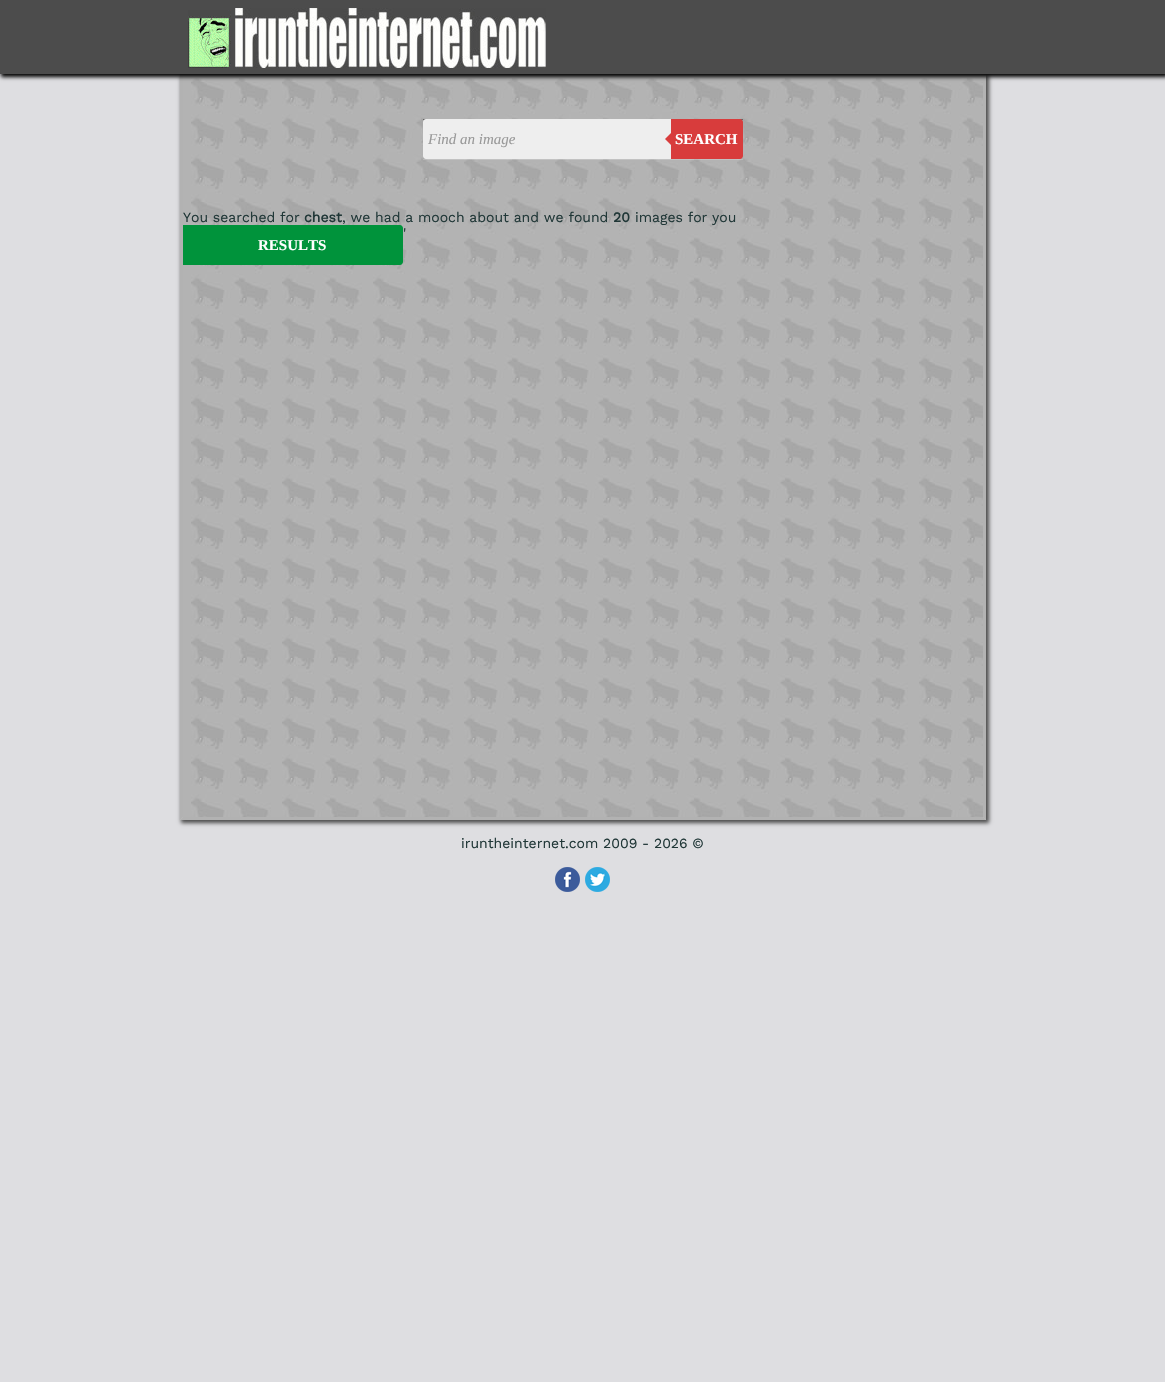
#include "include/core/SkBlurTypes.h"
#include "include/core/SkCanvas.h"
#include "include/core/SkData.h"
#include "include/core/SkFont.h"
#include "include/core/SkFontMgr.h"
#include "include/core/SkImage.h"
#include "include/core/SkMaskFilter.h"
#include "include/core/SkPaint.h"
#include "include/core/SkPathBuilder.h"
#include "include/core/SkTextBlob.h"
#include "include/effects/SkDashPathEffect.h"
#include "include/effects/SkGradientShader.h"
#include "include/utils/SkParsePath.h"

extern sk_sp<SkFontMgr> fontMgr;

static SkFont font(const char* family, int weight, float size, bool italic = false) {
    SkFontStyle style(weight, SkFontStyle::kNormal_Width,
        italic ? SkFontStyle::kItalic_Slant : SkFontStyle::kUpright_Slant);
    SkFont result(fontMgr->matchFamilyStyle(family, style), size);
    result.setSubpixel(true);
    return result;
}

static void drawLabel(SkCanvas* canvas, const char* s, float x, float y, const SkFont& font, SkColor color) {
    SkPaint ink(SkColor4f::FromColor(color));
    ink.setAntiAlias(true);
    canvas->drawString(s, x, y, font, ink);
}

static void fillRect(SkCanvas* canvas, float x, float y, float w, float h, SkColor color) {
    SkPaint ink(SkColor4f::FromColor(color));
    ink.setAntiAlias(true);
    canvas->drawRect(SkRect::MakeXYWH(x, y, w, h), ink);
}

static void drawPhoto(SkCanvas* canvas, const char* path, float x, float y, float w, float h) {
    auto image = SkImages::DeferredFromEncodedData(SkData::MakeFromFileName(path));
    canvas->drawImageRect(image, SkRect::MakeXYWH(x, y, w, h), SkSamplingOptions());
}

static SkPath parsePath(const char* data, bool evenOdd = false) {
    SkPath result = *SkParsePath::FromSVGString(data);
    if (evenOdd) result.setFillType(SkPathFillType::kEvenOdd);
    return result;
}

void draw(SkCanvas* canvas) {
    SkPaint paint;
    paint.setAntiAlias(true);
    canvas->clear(0xFFDEDEE1);
    paint.setColor(0xFF4C4C4C);
    paint.setMaskFilter(SkMaskFilter::MakeBlur(kNormal_SkBlurStyle, 2));
    canvas->drawRect(SkRect::MakeXYWH(181, 75, 808, 748), paint);
    paint.setMaskFilter(nullptr);
    fillRect(canvas, 180, 74, 806, 746, 0xFFFFFFFF);
    paint.setColor(0xFFB3B3B3);
    canvas->drawPath(parsePath("M986 74V820L983 817V74Z"), paint);
    paint.setColor(0x4D000000);
    canvas->drawPath(parsePath("M986 820H180L183 817H983Z"), paint);
    canvas->drawPath(parsePath("M180 820V74H183V817Z"), paint);
    fillRect(canvas, 183, 74, 800, 743, 0xFFB3B3B3);
    drawPhoto(canvas, "assets/img3.png", 191, 78, 792, 739);
    paint.setColor(0xFF000000);
    paint.setMaskFilter(SkMaskFilter::MakeBlur(kNormal_SkBlurStyle, 2));
    canvas->drawRect(SkRect::MakeXYWH(1, 1, 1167, 76), paint);
    paint.setMaskFilter(nullptr);
    fillRect(canvas, 0, 0, 1165, 74, 0xFF4C4C4C);
    drawPhoto(canvas, "assets/img1.png", 188, 10, 43, 58);
    drawPhoto(canvas, "assets/img2.png", 235, 8, 311, 60);
    fillRect(canvas, 423, 159, 320, 1, 0x33FFFFFF);
    fillRect(canvas, 423, 119, 320, 1, 0x66000000);
    paint.setColor(0xFFEEEEEE);
    canvas->drawPath(parsePath("M426 119H671V159H426C424.5 159 423 157.5 423 156V122C423 120.5 424.5 119 426 119Z"), paint);
    SkFont font1 = font("Liberation Serif", 400, 15, true);
    drawLabel(canvas, "Find an image", 428, 144, font1, 0xFF999999);
    paint.setColor(0xFFD83C3C);
    canvas->drawPath(parsePath("M671 119H740C741.5 119 743 120.5 743 122V156C743 157.5 741.5 159 740 159H671Z"), paint);
    canvas->drawPath(parsePath("M673 131V147L665 139Z"), paint);
    SkFont font2 = font("Liberation Serif", 700, 15);
    drawLabel(canvas, "SEARCH", 675, 144, font2, 0xFFFFFFFF);
    SkFont font3 = font("Work Sans", 400, 14);
    drawLabel(canvas, "You searched for", 183, 222, font3, 0xFF203737);
    SkFont font4 = font("Work Sans", 700, 14);
    drawLabel(canvas, "chest", 304, 222, font4, 0xFF203737);
    drawLabel(canvas, ", we had a mooch about and we found", 342, 222, font3, 0xFF203737);
    drawLabel(canvas, "20", 613, 222, font4, 0xFF203737);
    drawLabel(canvas, "images for you", 635, 222, font3, 0xFF203737);
    drawLabel(canvas, "'", 403, 238, font3, 0xFF203737);
    paint.setColor(0xFF00933B);
    canvas->drawPath(parsePath("M183 225H400C401.5 225 403 226.5 403 228V262C403 263.5 401.5 265 400 265H183Z"), paint);
    drawLabel(canvas, "RESULTS", 258, 250, font2, 0xFFFFFFFF);
    drawLabel(canvas, "iruntheinternet.com 2009 - 2026 ©", 461, 848, font3, 0xFF203737);
    drawPhoto(canvas, "assets/img4.png", 555, 867, 25, 25);
    drawPhoto(canvas, "assets/img5.png", 585, 867, 25, 25);
}
